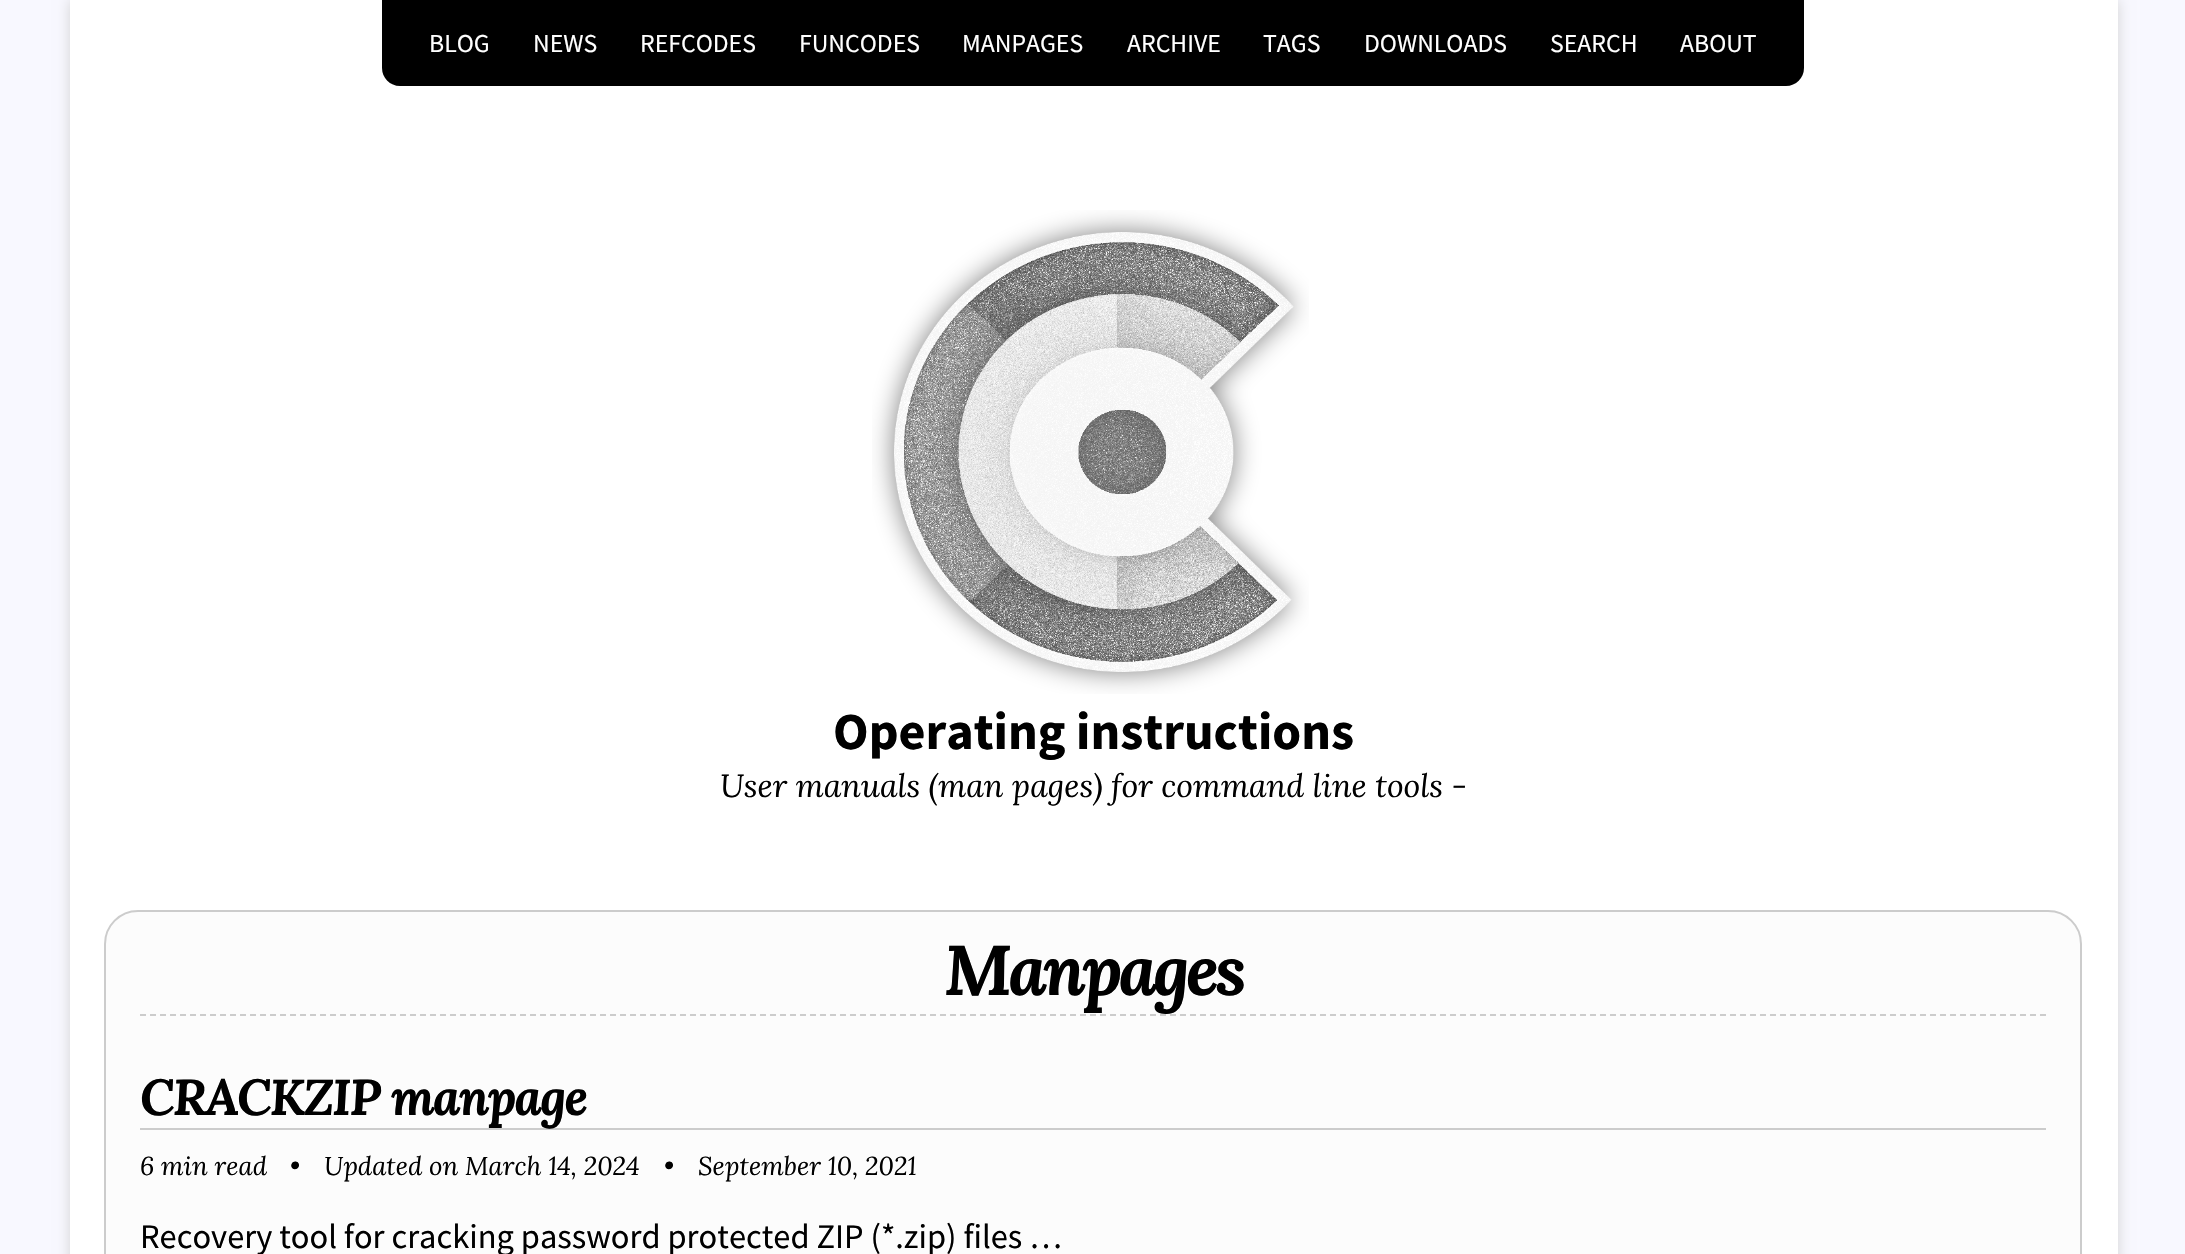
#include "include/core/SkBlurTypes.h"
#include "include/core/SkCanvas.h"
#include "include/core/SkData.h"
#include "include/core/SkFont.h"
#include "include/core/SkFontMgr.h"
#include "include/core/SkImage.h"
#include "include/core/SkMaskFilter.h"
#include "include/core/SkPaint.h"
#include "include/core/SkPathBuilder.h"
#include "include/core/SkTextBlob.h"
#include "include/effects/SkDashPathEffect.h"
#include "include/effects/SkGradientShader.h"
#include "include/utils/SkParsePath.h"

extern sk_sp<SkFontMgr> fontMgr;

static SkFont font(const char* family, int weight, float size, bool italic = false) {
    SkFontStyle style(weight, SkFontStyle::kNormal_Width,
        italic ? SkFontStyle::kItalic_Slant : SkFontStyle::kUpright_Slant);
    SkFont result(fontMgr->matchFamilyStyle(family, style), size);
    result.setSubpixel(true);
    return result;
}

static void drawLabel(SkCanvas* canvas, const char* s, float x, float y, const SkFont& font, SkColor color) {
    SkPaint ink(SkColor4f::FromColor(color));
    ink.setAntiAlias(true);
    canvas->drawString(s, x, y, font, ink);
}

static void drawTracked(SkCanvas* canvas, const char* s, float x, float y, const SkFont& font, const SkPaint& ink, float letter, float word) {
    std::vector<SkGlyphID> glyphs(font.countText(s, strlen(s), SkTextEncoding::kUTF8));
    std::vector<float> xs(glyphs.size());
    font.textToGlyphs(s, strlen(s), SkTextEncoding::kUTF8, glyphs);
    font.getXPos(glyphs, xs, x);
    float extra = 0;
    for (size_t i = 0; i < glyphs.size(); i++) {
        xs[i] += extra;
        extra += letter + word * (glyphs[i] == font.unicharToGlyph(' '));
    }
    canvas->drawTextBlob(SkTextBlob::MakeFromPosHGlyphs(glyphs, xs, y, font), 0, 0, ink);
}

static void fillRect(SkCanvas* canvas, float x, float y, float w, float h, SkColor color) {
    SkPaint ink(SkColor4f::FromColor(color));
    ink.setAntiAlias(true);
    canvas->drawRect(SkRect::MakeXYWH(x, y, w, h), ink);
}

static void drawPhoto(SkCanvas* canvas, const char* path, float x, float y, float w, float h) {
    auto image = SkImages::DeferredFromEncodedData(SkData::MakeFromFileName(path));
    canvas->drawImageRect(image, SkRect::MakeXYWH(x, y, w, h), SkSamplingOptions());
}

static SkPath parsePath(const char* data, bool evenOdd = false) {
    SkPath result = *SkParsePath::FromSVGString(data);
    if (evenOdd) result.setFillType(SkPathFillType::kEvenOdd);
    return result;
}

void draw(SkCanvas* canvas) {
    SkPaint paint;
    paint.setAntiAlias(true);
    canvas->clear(0xFFF8F8FF);
    paint.setColor(0xFFD3D3D3);
    paint.setMaskFilter(SkMaskFilter::MakeBlur(kNormal_SkBlurStyle, 6.5f));
    canvas->drawRect(SkRect::MakeXYWH(70, 0, 2048, 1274), paint);
    paint.setMaskFilter(nullptr);
    fillRect(canvas, 70, 0, 2048, 1254, 0xFFFFFFFF);
    paint.setColor(0xFF000000);
    canvas->drawPath(parsePath("M382 0H1804V68C1804 78 1796 86 1786 86H400C390 86 382 78 382 68Z"), paint);
    SkFont font1 = font("Source Sans Pro", 400, 25.75f);
    drawLabel(canvas, "BLOG", 429, 52, font1, 0xFFFFFFFF);
    drawLabel(canvas, "NEWS", 533, 52, font1, 0xFFFFFFFF);
    drawLabel(canvas, "REFCODES", 640, 52, font1, 0xFFFFFFFF);
    drawLabel(canvas, "FUNCODES", 799, 52, font1, 0xFFFFFFFF);
    drawLabel(canvas, "MANPAGES", 962, 52, font1, 0xFFFFFFFF);
    drawLabel(canvas, "ARCHIVE", 1127, 52, font1, 0xFFFFFFFF);
    drawLabel(canvas, "TAGS", 1263, 52, font1, 0xFFFFFFFF);
    drawLabel(canvas, "DOWNLOADS", 1364, 52, font1, 0xFFFFFFFF);
    drawLabel(canvas, "SEARCH", 1550, 52, font1, 0xFFFFFFFF);
    drawLabel(canvas, "ABOUT", 1680, 52, font1, 0xFFFFFFFF);
    drawPhoto(canvas, "assets/img1.png", 872, 210, 437, 484);
    SkFont font2 = font("Source Sans Pro", 700, 52.1f);
    drawLabel(canvas, "Operating instructions", 833, 749, font2, 0xFF000000);
    SkFont font3 = font("Lora", 400, 32, true);
    drawLabel(canvas, "User manuals (man pages) for command line tools -", 720, 797, font3, 0xFF000000);
    paint.setColor(0xFFFCFCFC);
    canvas->drawRoundRect(SkRect::MakeXYWH(105, 911, 1976, 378), 33, 33, paint);
    paint.setStroke(true);
    paint.setStrokeWidth(2);
    paint.setColor(0xFFCCCCCC);
    canvas->drawRoundRect(SkRect::MakeXYWH(105, 911, 1976, 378), 33, 33, paint);
    paint.setPathEffect(SkDashPathEffect::Make({{6, 4}}, 0));
    canvas->drawPath(parsePath("M140 1015H2046"), paint);
    paint.setPathEffect(nullptr);
    SkFont font4 = font("Lora", 700, 70.5f, true);
    paint.setStroke(false);
    paint.setColor(0xFF000000);
    drawTracked(canvas, "Manpages", 944, 995, font4, paint, -4, 0);
    fillRect(canvas, 140, 1128, 1906, 2, 0xFFCCCCCC);
    SkFont font5 = font("Lora", 700, 50.5f, true);
    drawTracked(canvas, "CRACKZIP manpage", 140, 1115, font5, paint, -2, 0);
    SkFont font6 = font("Lora", 400, 25.75f, true);
    drawLabel(canvas, "6 min read", 140, 1175, font6, 0xFF000000);
    drawLabel(canvas, "•", 290, 1175, font6, 0xFF000000);
    drawLabel(canvas, "Updated on March 14, 2024", 324, 1175, font6, 0xFF000000);
    drawLabel(canvas, "•", 664, 1175, font6, 0xFF000000);
    drawLabel(canvas, "September 10, 2021", 698, 1175, font6, 0xFF000000);
    SkFont font7 = font("Source Sans Pro", 400, 34.45f);
    drawLabel(canvas, "Recovery tool for cracking password protected ZIP (*.zip) files …", 140, 1248, font7, 0xFF000000);
}
